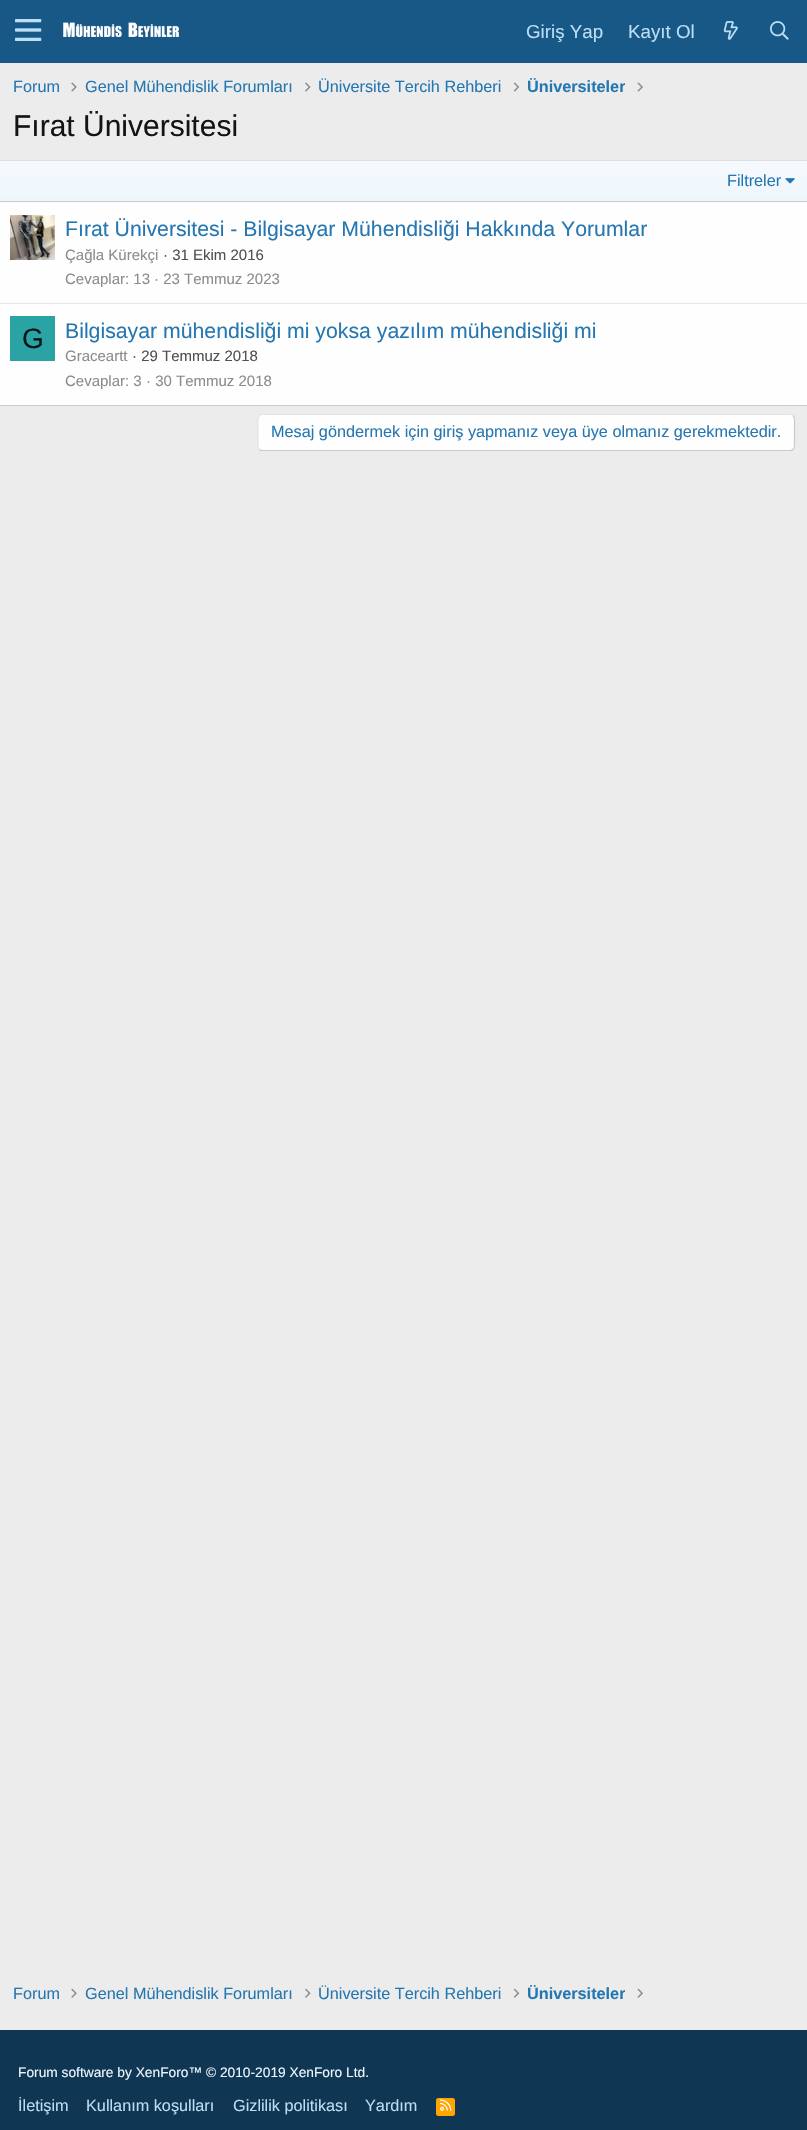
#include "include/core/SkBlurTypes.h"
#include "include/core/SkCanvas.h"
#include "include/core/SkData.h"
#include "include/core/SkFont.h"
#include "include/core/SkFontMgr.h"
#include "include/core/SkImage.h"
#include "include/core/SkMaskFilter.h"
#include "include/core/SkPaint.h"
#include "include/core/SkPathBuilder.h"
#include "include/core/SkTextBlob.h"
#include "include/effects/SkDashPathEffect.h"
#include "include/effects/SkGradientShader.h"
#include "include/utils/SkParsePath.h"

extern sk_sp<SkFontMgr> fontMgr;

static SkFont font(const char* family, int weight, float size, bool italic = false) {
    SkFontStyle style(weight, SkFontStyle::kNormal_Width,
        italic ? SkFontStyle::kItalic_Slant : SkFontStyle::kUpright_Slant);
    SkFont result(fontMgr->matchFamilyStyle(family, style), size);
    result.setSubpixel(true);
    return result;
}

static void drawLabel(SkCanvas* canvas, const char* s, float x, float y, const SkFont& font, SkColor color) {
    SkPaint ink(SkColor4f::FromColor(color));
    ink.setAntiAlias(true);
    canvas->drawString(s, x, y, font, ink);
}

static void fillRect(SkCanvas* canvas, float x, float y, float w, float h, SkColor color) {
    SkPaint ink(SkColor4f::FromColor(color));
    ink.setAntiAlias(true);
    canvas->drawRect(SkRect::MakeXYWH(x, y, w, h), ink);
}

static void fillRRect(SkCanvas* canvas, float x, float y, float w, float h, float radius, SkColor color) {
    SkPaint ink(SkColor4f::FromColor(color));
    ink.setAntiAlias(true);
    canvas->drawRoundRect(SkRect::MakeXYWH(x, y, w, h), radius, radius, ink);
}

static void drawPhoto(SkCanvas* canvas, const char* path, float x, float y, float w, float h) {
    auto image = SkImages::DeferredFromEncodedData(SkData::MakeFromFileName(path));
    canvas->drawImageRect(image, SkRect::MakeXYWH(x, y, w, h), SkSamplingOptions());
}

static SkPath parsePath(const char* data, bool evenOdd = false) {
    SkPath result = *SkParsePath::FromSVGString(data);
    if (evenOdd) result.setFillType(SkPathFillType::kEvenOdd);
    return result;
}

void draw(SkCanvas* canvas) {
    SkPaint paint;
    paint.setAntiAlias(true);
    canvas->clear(0xFFECECEC);
    fillRect(canvas, 0, 0, 807, 63, 0xFF185886);
    drawPhoto(canvas, "assets/img1.png", 15, 19, 27, 22);
    drawPhoto(canvas, "assets/img2.png", 63, 22, 116, 15);
    SkFont font1 = font("Liberation Sans", 400, 18.75f);
    drawLabel(canvas, "Giriş Yap", 526, 38, font1, 0xFFBCDEF5);
    drawLabel(canvas, "Kayıt Ol", 628, 38, font1, 0xFFBCDEF5);
    drawPhoto(canvas, "assets/img3.png", 723, 21, 15, 19);
    drawPhoto(canvas, "assets/img4.png", 770, 21, 19, 19);
    SkFont font2 = font("Liberation Sans", 400, 16.25f);
    drawLabel(canvas, "Forum", 13, 92, font2, 0xFF2577B1);
    drawPhoto(canvas, "assets/img5.png", 71, 82, 6, 10);
    drawLabel(canvas, "Genel Mühendislik Forumları", 85, 92, font2, 0xFF2577B1);
    drawPhoto(canvas, "assets/img6.png", 305, 82, 6, 10);
    drawLabel(canvas, "Üniversite Tercih Rehberi", 318, 92, font2, 0xFF2577B1);
    drawPhoto(canvas, "assets/img7.png", 513, 82, 7, 10);
    canvas->save();
    canvas->clipRect(SkRect::MakeXYWH(528, 75, 97, 24));
    SkFont font3 = font("Liberation Sans", 700, 16.25f);
    drawLabel(canvas, "Üniversiteler", 527, 92, font3, 0xFF2577B1);
    canvas->restore();
    drawPhoto(canvas, "assets/img8.png", 637, 82, 6, 10);
    SkFont font4 = font("Liberation Sans", 400, 30);
    drawLabel(canvas, "Fırat Üniversitesi", 13, 136, font4, 0xFF141414);
    fillRect(canvas, 0, 203, 807, 202, 0xFFFEFEFE);
    fillRect(canvas, 0, 160, 807, 1, 0xFFDFDFDF);
    fillRect(canvas, 0, 405, 807, 1, 0xFFCBCBCB);
    {
        const SkColor colors[] = {0xFFEDF6FD, 0xFFF6FAFE};
        const float stops[] = {0, 1};
        const SkPoint ends[] = {{404, 201}, {404, 161}};
        paint.setShader(SkGradientShader::MakeLinear(ends, colors, stops, 2, SkTileMode::kClamp));
        paint.setAlpha(255);
    }
    canvas->drawRect(SkRect::MakeXYWH(0, 161, 807, 40), paint);
    {
        const SkColor colors[] = {0xFFEDF6FD, 0xFFF6FAFE};
        const float stops[] = {0, 1};
        const SkPoint ends[] = {{404, 241}, {404, 201}};
        paint.setShader(SkGradientShader::MakeLinear(ends, colors, stops, 2, SkTileMode::kClamp));
        paint.setAlpha(255);
    }
    canvas->drawRect(SkRect::MakeXYWH(0, 202, 807, 1), paint);
    fillRect(canvas, 0, 201, 807, 1, 0xFFCBCBCB);
    drawLabel(canvas, "Filtreler", 727, 186, font2, 0xFF2577B1);
    drawPhoto(canvas, "assets/img9.png", 785, 178, 10, 6);
    drawPhoto(canvas, "assets/img10.png", 10, 215, 45, 45);
    SkFont font5 = font("Liberation Sans", 400, 21.25f);
    drawLabel(canvas, "Fırat Üniversitesi - Bilgisayar Mühendisliği Hakkında Yorumlar", 65, 236, font5, 0xFF2577B1);
    SkFont font6 = font("Liberation Sans", 400, 15);
    drawLabel(canvas, "Çağla Kürekçi", 65, 260, font6, 0xFF8C8C8C);
    drawLabel(canvas, "· 31 Ekim 2016", 163, 260, font6, 0xFF505050);
    drawLabel(canvas, "Cevaplar: 13", 65, 284, font6, 0xFF8C8C8C);
    drawLabel(canvas, "· 23 Temmuz 2023", 154, 284, font6, 0xFF8C8C8C);
    fillRect(canvas, 0, 303, 807, 1, 0xFFE7E7E7);
    fillRect(canvas, 10, 316, 45, 45, 0xFF29A3A3);
    SkFont font7 = font("Liberation Sans", 400, 28);
    drawLabel(canvas, "G", 22, 348, font7, 0xFF051414);
    drawLabel(canvas, "Bilgisayar mühendisliği mi yoksa yazılım mühendisliği mi", 65, 338, font5, 0xFF2577B1);
    drawLabel(canvas, "Graceartt", 65, 361, font6, 0xFF8C8C8C);
    drawLabel(canvas, "· 29 Temmuz 2018", 132, 361, font6, 0xFF505050);
    drawLabel(canvas, "Cevaplar: 3", 65, 386, font6, 0xFF8C8C8C);
    drawLabel(canvas, "· 30 Temmuz 2018", 146, 386, font6, 0xFF8C8C8C);
    fillRRect(canvas, 258, 414, 537, 37, 5, 0xFFFEFEFE);
    paint.setStroke(true);
    paint.setStrokeWidth(1.2f);
    paint.setShader(nullptr);
    paint.setColor(0xFFCBCBCB);
    canvas->drawPath(parsePath("M793 415.5C794 416.5 794.5 417.5 794.5 419V446C794.5 447.5 794 448.5 793 449.5C792.5 450 791 450.5 790 450.5H262.5C261.5 450.5 260 450 259.5 449.5"), paint);
    paint.setColor(0xFFE5E5E5);
    canvas->drawPath(parsePath("M259.5 449.5C258.5 448.5 258 447.5 258 446V419C258 417.5 258.5 416.5 259.5 415.5C260 415 261.5 414.5 262.5 414.5H790C791 414.5 792.5 415 793 415.5"), paint);
    drawLabel(canvas, "Mesaj göndermek için giriş yapmanız veya üye olmanız gerekmektedir.", 271, 437, font2, 0xFF2577B1);
    drawLabel(canvas, "Forum", 13, 1999, font2, 0xFF2577B1);
    drawPhoto(canvas, "assets/img11.png", 71, 1988, 6, 10);
    drawLabel(canvas, "Genel Mühendislik Forumları", 85, 1999, font2, 0xFF2577B1);
    drawPhoto(canvas, "assets/img12.png", 305, 1988, 6, 10);
    drawLabel(canvas, "Üniversite Tercih Rehberi", 318, 1999, font2, 0xFF2577B1);
    drawPhoto(canvas, "assets/img13.png", 513, 1988, 7, 10);
    canvas->save();
    canvas->clipRect(SkRect::MakeXYWH(528, 1981, 97, 24));
    drawLabel(canvas, "Üniversiteler", 527, 1999, font3, 0xFF2577B1);
    canvas->restore();
    drawPhoto(canvas, "assets/img14.png", 637, 1988, 6, 10);
    fillRect(canvas, 0, 2030, 807, 100, 0xFF0F3652);
    SkFont font8 = font("Liberation Sans", 400, 13.75f);
    drawLabel(canvas, "Forum software by XenForo™ © 2010-2019 XenForo Ltd.", 18, 2077, font8, 0xFFEDF6FD);
    drawLabel(canvas, "İletişim", 18, 2111, font2, 0xFFBCDEF5);
    drawLabel(canvas, "Kullanım koşulları", 86, 2111, font2, 0xFFBCDEF5);
    drawLabel(canvas, "Gizlilik politikası", 233, 2111, font2, 0xFFBCDEF5);
    drawLabel(canvas, "Yardım", 365, 2111, font2, 0xFFBCDEF5);
    fillRRect(canvas, 436, 2098, 19, 18, 2.5f, 0xFFFFA500);
    drawPhoto(canvas, "assets/img15.png", 440, 2099, 12, 12);
}
